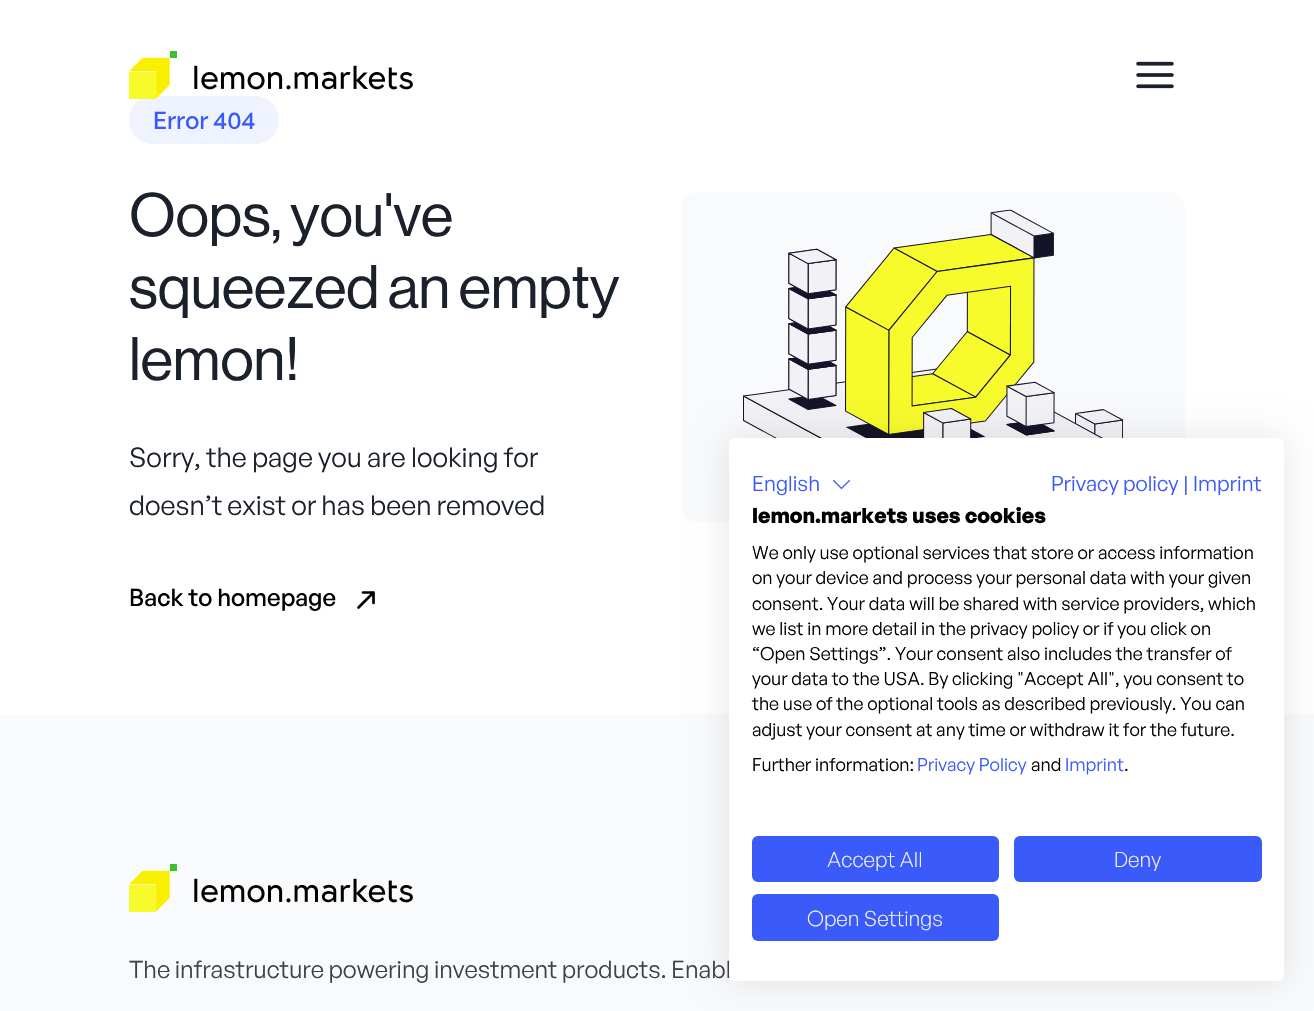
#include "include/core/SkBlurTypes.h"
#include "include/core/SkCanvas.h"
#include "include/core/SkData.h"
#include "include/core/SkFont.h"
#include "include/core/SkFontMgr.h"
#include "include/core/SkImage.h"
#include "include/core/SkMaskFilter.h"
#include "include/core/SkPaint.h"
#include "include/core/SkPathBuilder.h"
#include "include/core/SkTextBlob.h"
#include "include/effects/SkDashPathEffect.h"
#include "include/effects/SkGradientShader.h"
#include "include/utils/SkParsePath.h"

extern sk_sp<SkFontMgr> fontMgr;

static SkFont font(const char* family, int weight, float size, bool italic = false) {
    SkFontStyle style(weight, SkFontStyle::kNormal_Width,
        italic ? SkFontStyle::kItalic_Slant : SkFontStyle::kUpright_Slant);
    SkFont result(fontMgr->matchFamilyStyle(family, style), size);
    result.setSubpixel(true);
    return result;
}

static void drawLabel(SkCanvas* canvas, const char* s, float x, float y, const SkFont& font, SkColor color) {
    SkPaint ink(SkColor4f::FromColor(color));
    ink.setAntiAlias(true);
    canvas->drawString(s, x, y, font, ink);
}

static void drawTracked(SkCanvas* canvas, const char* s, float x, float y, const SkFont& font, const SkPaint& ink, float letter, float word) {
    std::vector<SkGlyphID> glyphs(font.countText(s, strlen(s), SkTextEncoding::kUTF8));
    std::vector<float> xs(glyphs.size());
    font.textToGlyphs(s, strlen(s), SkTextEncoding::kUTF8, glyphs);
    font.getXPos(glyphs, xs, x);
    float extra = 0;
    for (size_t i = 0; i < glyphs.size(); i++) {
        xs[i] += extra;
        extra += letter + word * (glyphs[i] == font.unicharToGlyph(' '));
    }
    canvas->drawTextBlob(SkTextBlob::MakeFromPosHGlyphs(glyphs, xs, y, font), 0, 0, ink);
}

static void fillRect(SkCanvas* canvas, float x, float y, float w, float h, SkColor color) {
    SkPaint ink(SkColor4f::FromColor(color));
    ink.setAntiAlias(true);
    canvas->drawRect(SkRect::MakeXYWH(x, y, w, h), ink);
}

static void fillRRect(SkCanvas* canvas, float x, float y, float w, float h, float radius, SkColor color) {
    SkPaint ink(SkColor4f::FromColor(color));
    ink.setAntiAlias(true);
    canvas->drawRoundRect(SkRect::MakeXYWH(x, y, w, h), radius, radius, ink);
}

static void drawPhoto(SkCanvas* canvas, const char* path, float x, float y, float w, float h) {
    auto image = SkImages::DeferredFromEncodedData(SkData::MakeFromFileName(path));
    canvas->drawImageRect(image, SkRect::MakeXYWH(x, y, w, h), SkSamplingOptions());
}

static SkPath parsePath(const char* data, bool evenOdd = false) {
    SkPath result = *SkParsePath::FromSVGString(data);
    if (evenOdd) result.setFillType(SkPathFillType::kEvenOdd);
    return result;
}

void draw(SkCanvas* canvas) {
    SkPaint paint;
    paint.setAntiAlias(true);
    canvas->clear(0xFFFFFFFF);
    fillRRect(canvas, 129, 96, 150, 48, 24, 0xFFEFF2FF);
    drawPhoto(canvas, "assets/img1.png", 129, 51, 284, 48);
    drawPhoto(canvas, "assets/img2.png", 1136, 61, 38, 28);
    SkFont font1 = font("General Sans", 500, 24);
    drawLabel(canvas, "Error 404", 153, 129, font1, 0xFF3A5AF9);
    SkFont font2 = font("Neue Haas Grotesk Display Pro", 400, 60);
    paint.setColor(0xFF1A202C);
    drawTracked(canvas, "Oops, you've", 129, 236, font2, paint, 0, -1);
    drawTracked(canvas, "squeezed an empty", 129, 308, font2, paint, 0, -1);
    drawLabel(canvas, "lemon!", 129, 380, font2, 0xFF1A202C);
    SkFont font3 = font("General Sans", 400, 27);
    drawTracked(canvas, "Sorry, the page you are looking for", 129, 467, font3, paint, 0, -0.5f);
    drawTracked(canvas, "doesn’t exist or has been removed", 129, 515, font3, paint, 0, -0.5f);
    drawLabel(canvas, "Back to homepage", 129, 606, font1, 0xFF000000);
    paint.setStroke(true);
    paint.setStrokeWidth(2.7f);
    paint.setStrokeCap(SkPaint::kRound_Cap);
    paint.setStrokeJoin(SkPaint::kRound_Join);
    paint.setColor(0xFF000000);
    canvas->drawPath(parsePath("M373.5 592.5L358.5 607.5M363 592.5H373.5V603"), paint);
    drawPhoto(canvas, "assets/img3.png", 681, 192, 504, 330);
    fillRect(canvas, 0, 714, 1314, 297, 0xFFF9FAFB);
    drawPhoto(canvas, "assets/img4.png", 129, 864, 284, 48);
    SkFont font4 = font("General Sans", 400, 24);
    paint.setStroke(false);
    paint.setColor(0xFF3C4149);
    drawTracked(canvas, "The infrastructure powering investment products. Enabl", 129, 978, font4, paint, 0, -0.5f);
    paint.setColor(0x1A000000);
    paint.setMaskFilter(SkMaskFilter::MakeBlur(kNormal_SkBlurStyle, 18));
    canvas->drawRoundRect(SkRect::MakeXYWH(729, 438, 555, 543), 6, 6, paint);
    paint.setMaskFilter(nullptr);
    fillRRect(canvas, 729, 438, 555, 543, 6, 0xFFFFFFFF);
    SkFont font5 = font("General Sans", 400, 21);
    drawLabel(canvas, "English", 752, 491, font5, 0xFF3A5AF9);
    drawPhoto(canvas, "assets/img5.png", 833, 480, 17, 9);
    drawLabel(canvas, "Privacy policy | Imprint", 1051, 491, font5, 0xFF3A5AF9);
    SkFont font6 = font("General Sans", 700, 21);
    drawLabel(canvas, "lemon.markets uses cookies", 752, 523, font6, 0xFF000000);
    SkFont font7 = font("General Sans", 400, 18);
    drawLabel(canvas, "We only use optional services that store or access information", 752, 559, font7, 0xFF000000);
    drawLabel(canvas, "on your device and process your personal data with your given", 752, 584, font7, 0xFF000000);
    drawLabel(canvas, "consent. Your data will be shared with service providers, which", 752, 610, font7, 0xFF000000);
    drawLabel(canvas, "we list in more detail in the privacy policy or if you click on", 752, 635, font7, 0xFF000000);
    drawLabel(canvas, "“Open Settings”. Your consent also includes the transfer of", 752, 660, font7, 0xFF000000);
    drawLabel(canvas, "your data to the USA. By clicking \"Accept All\", you consent to", 752, 685, font7, 0xFF000000);
    drawLabel(canvas, "the use of the optional tools as described previously. You can", 752, 710, font7, 0xFF000000);
    drawLabel(canvas, "adjust your consent at any time or withdraw it for the future.", 752, 736, font7, 0xFF000000);
    drawLabel(canvas, "Further information:", 752, 771, font7, 0xFF000000);
    drawLabel(canvas, "Privacy Policy", 917, 771, font7, 0xFF3A5AF9);
    drawLabel(canvas, "and", 1031, 771, font7, 0xFF000000);
    drawLabel(canvas, "Imprint", 1065, 771, font7, 0xFF3A5AF9);
    drawLabel(canvas, ".", 1124, 771, font7, 0xFF000000);
    paint.setColor(0xFF3A5AF9);
    canvas->drawRoundRect(SkRect::MakeXYWH(753, 837, 245, 44), 5, 5, paint);
    paint.setStroke(true);
    paint.setStrokeWidth(2);
    paint.setStrokeCap(SkPaint::kButt_Cap);
    paint.setStrokeJoin(SkPaint::kMiter_Join);
    canvas->drawRoundRect(SkRect::MakeXYWH(753, 837, 245, 44), 5, 5, paint);
    SkFont font8 = font("General Sans", 300, 21);
    drawLabel(canvas, "Accept All", 827, 867, font8, 0xFFFFFFFF);
    fillRRect(canvas, 1014, 836, 248, 46, 6, 0xFF3A5AF9);
    drawLabel(canvas, "Deny", 1114, 867, font8, 0xFFFFFFFF);
    fillRRect(canvas, 752, 894, 247, 47, 6, 0xFF3A5AF9);
    drawLabel(canvas, "Open Settings", 807, 926, font8, 0xFFFFFFFF);
}
